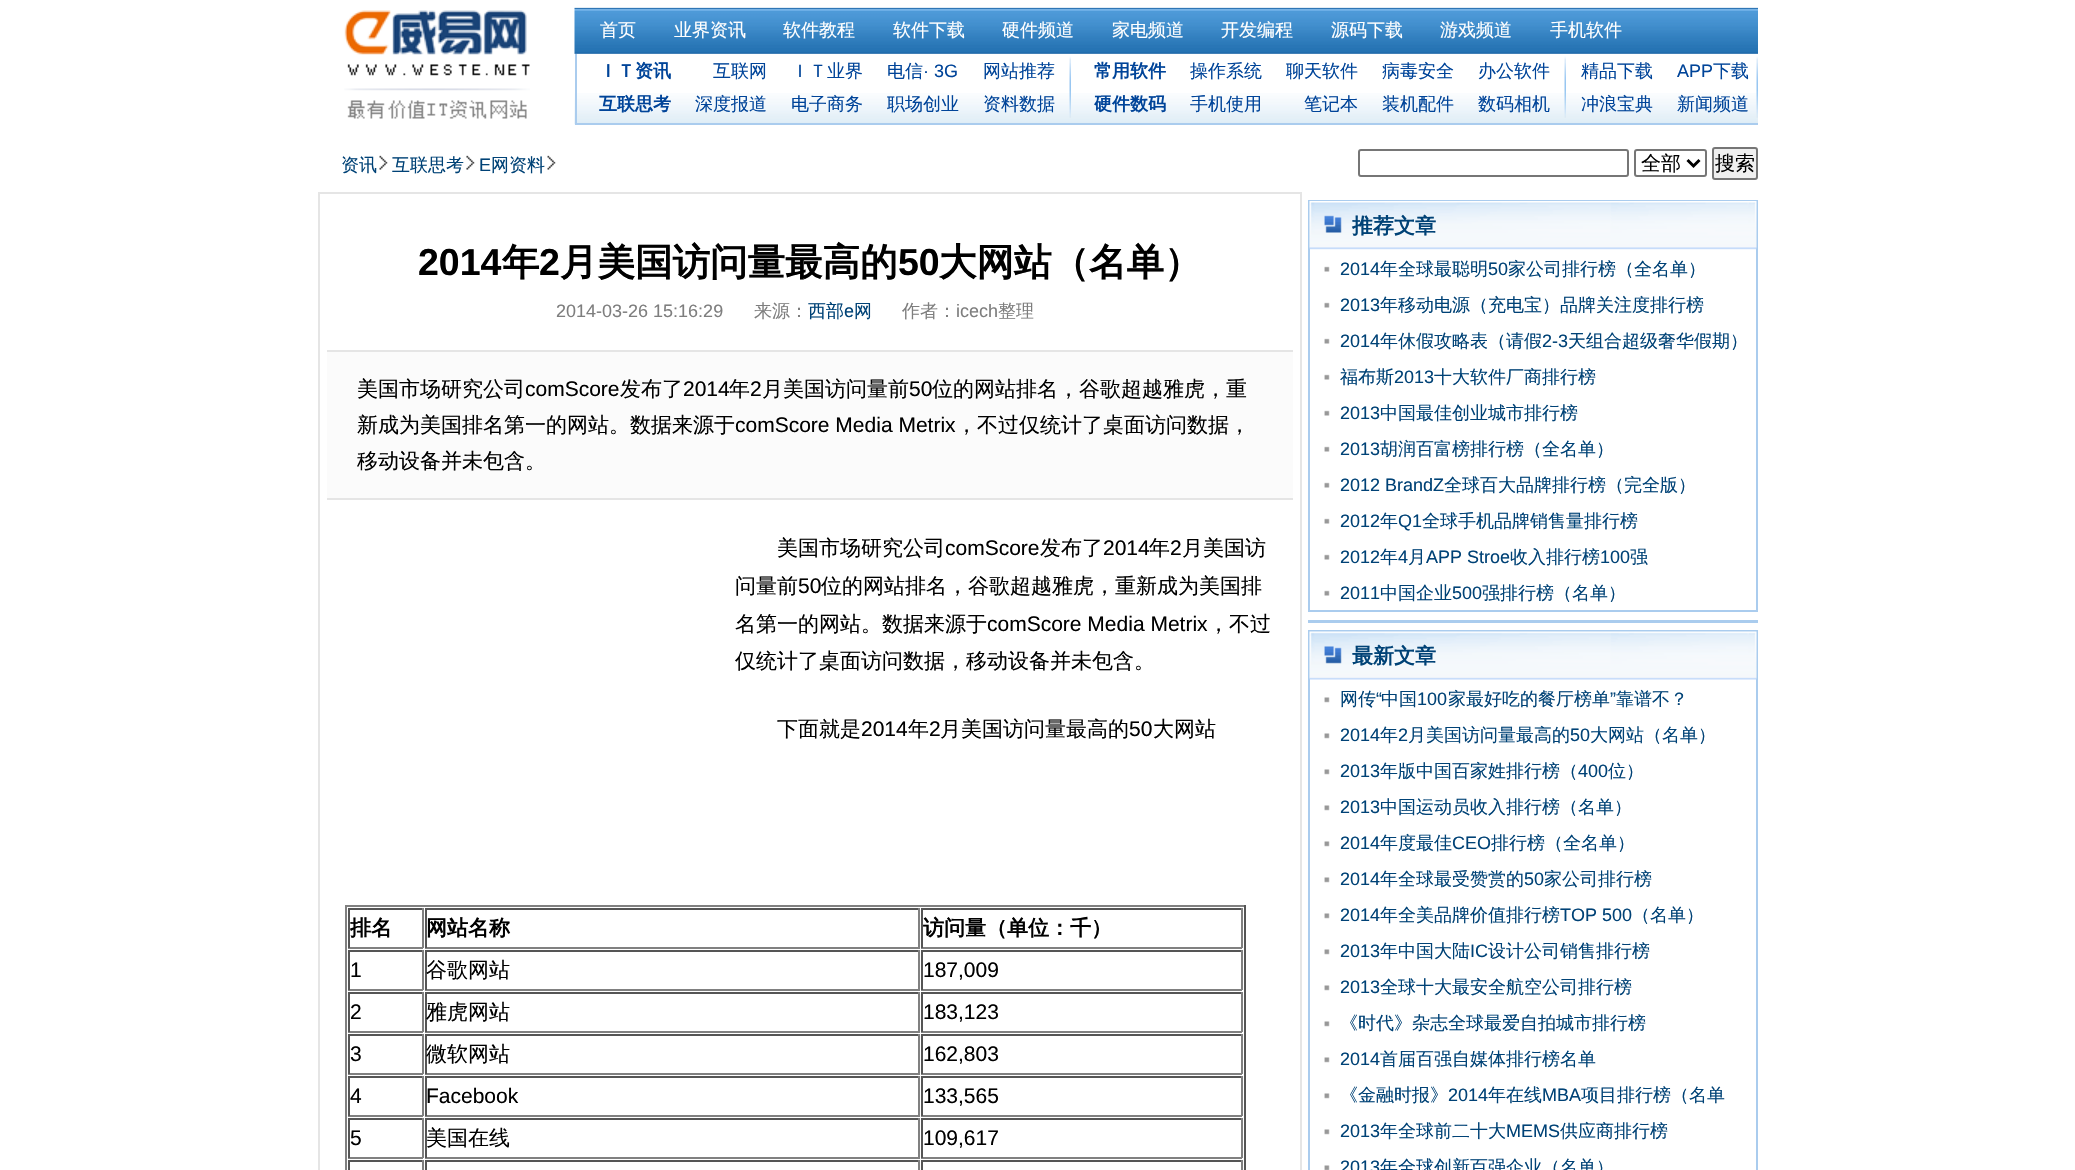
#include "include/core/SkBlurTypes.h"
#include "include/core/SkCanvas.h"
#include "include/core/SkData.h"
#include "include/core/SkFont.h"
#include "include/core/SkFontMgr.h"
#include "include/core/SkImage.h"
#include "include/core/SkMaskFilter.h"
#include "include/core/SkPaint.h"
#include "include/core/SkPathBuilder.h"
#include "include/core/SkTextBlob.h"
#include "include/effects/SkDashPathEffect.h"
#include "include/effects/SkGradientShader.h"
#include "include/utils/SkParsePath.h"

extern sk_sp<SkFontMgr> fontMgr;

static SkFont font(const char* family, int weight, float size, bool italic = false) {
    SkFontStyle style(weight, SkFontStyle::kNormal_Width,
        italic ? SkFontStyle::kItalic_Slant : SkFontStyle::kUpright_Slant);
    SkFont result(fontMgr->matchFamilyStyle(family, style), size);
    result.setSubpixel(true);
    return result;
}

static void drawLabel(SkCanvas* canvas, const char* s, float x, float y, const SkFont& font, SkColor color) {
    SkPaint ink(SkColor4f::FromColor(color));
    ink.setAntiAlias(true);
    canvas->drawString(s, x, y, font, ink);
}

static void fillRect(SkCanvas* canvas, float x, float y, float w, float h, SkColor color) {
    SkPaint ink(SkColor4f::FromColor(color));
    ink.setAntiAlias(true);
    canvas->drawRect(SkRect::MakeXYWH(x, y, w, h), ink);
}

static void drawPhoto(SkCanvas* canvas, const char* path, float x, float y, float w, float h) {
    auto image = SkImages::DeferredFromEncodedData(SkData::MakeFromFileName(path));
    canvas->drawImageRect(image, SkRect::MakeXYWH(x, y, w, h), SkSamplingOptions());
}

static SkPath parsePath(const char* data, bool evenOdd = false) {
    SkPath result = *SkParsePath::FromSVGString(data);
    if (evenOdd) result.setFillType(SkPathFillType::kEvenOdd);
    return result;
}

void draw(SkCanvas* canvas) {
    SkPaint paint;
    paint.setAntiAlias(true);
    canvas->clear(0xFFFFFFFF);
    drawPhoto(canvas, "assets/img1.png", 344, 10, 186, 109);
    drawPhoto(canvas, "assets/img2.png", 574, 7, 1184, 47);
    SkFont font1 = font("WenQuanYi Zen Hei", 500, 18);
    drawLabel(canvas, "首页", 600, 36, font1, 0xFFFFFFFF);
    drawLabel(canvas, "业界资讯", 674, 36, font1, 0xFFFFFFFF);
    drawLabel(canvas, "软件教程", 783, 36, font1, 0xFFFFFFFF);
    drawLabel(canvas, "软件下载", 893, 36, font1, 0xFFFFFFFF);
    drawLabel(canvas, "硬件频道", 1002, 36, font1, 0xFFFFFFFF);
    drawLabel(canvas, "家电频道", 1112, 36, font1, 0xFFFFFFFF);
    drawLabel(canvas, "开发编程", 1221, 36, font1, 0xFFFFFFFF);
    drawLabel(canvas, "源码下载", 1331, 36, font1, 0xFFFFFFFF);
    drawLabel(canvas, "游戏频道", 1440, 36, font1, 0xFFFFFFFF);
    drawLabel(canvas, "手机软件", 1550, 36, font1, 0xFFFFFFFF);
    drawPhoto(canvas, "assets/img3.png", 574, 93, 1184, 32);
    fillRect(canvas, 575, 123, 1183, 2, 0xFFAACCEE);
    fillRect(canvas, 575, 54, 2, 71, 0xFFAACCEE);
    drawPhoto(canvas, "assets/img4.png", 1069, 56, 2, 62);
    SkFont font2 = font("WenQuanYi Zen Hei", 700, 18);
    drawLabel(canvas, "ＩＴ资讯", 599, 77, font2, 0xFF004499);
    drawLabel(canvas, "互联网", 713, 77, font1, 0xFF004499);
    drawLabel(canvas, "ＩＴ业界", 791, 77, font1, 0xFF004499);
    drawLabel(canvas, "电信", 887, 77, font1, 0xFF004499);
    SkFont font3 = font("Liberation Sans", 400, 18);
    drawLabel(canvas, "· 3G", 923, 77, font3, 0xFF004499);
    drawLabel(canvas, "网站推荐", 983, 77, font1, 0xFF004499);
    drawLabel(canvas, "互联思考", 599, 110, font2, 0xFF004499);
    drawLabel(canvas, "深度报道", 695, 110, font1, 0xFF004499);
    drawLabel(canvas, "电子商务", 791, 110, font1, 0xFF004499);
    drawLabel(canvas, "职场创业", 887, 110, font1, 0xFF004499);
    drawLabel(canvas, "资料数据", 983, 110, font1, 0xFF004499);
    drawPhoto(canvas, "assets/img4.png", 1564, 56, 2, 62);
    drawLabel(canvas, "常用软件", 1094, 77, font2, 0xFF004499);
    drawLabel(canvas, "操作系统", 1190, 77, font1, 0xFF004499);
    drawLabel(canvas, "聊天软件", 1286, 77, font1, 0xFF004499);
    drawLabel(canvas, "病毒安全", 1382, 77, font1, 0xFF004499);
    drawLabel(canvas, "办公软件", 1478, 77, font1, 0xFF004499);
    drawLabel(canvas, "硬件数码", 1094, 110, font2, 0xFF004499);
    drawLabel(canvas, "手机使用", 1190, 110, font1, 0xFF004499);
    drawLabel(canvas, "笔记本", 1304, 110, font1, 0xFF004499);
    drawLabel(canvas, "装机配件", 1382, 110, font1, 0xFF004499);
    drawLabel(canvas, "数码相机", 1478, 110, font1, 0xFF004499);
    drawPhoto(canvas, "assets/img4.png", 1756, 56, 2, 62);
    drawLabel(canvas, "精品下载", 1581, 77, font1, 0xFF004499);
    drawLabel(canvas, "APP", 1677, 77, font3, 0xFF004499);
    drawLabel(canvas, "下载", 1713, 77, font1, 0xFF004499);
    drawLabel(canvas, "冲浪宝典", 1581, 110, font1, 0xFF004499);
    drawLabel(canvas, "新闻频道", 1677, 110, font1, 0xFF004499);
    drawLabel(canvas, "资讯", 341, 171, font1, 0xFF004276);
    drawPhoto(canvas, "assets/img5.png", 379, 155, 9, 15);
    drawLabel(canvas, "互联思考", 392, 171, font1, 0xFF004276);
    drawPhoto(canvas, "assets/img6.png", 466, 155, 9, 15);
    drawLabel(canvas, "E", 479, 171, font3, 0xFF004276);
    drawLabel(canvas, "网资料", 491, 171, font1, 0xFF004276);
    drawPhoto(canvas, "assets/img5.png", 547, 155, 9, 15);
    paint.setStroke(true);
    paint.setStrokeWidth(2);
    paint.setColor(0xFF767676);
    canvas->drawRoundRect(SkRect::MakeXYWH(1359, 150, 269, 26), 2, 2, paint);
    canvas->drawRoundRect(SkRect::MakeXYWH(1635, 150, 71, 26), 2, 2, paint);
    paint.setStrokeWidth(3);
    paint.setColor(0xFF000000);
    canvas->drawPath(parsePath("M1687.5 160L1693.5 166L1699.5 160"), paint);
    SkFont font4 = font("WenQuanYi Zen Hei", 500, 20);
    drawLabel(canvas, "全部", 1641, 170, font4, 0xFF000000);
    paint.setStroke(false);
    paint.setColor(0xFFEFEFEF);
    canvas->drawRoundRect(SkRect::MakeXYWH(1713, 148, 44, 31), 2, 2, paint);
    paint.setStroke(true);
    paint.setStrokeWidth(2);
    paint.setColor(0xFF767676);
    canvas->drawRoundRect(SkRect::MakeXYWH(1713, 148, 44, 31), 2, 2, paint);
    drawLabel(canvas, "搜索", 1715, 170, font4, 0xFF000000);
    paint.setColor(0xFFE5E5E5);
    canvas->drawRect(SkRect::MakeXYWH(319, 193, 982, 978), paint);
    SkFont font5 = font("Liberation Sans", 700, 37.5f);
    drawLabel(canvas, "2014", 418, 275, font5, 0xFF000000);
    SkFont font6 = font("WenQuanYi Zen Hei", 700, 37.5f);
    drawLabel(canvas, "年", 502, 275, font6, 0xFF000000);
    drawLabel(canvas, "2", 539, 275, font5, 0xFF000000);
    drawLabel(canvas, "月美国访问量最高的", 560, 275, font6, 0xFF000000);
    drawLabel(canvas, "50", 898, 275, font5, 0xFF000000);
    drawLabel(canvas, "大网站（名单）", 939, 275, font6, 0xFF000000);
    drawLabel(canvas, "2014-03-26 15:16:29", 556, 317, font3, 0xFF7E7E7E);
    drawLabel(canvas, "来源：", 754, 317, font1, 0xFF7E7E7E);
    drawLabel(canvas, "西部", 808, 317, font1, 0xFF004276);
    drawLabel(canvas, "e", 844, 317, font3, 0xFF004276);
    drawLabel(canvas, "网", 854, 317, font1, 0xFF004276);
    drawLabel(canvas, "作者：", 902, 317, font1, 0xFF7E7E7E);
    drawLabel(canvas, "icech", 956, 317, font3, 0xFF7E7E7E);
    drawLabel(canvas, "整理", 998, 317, font1, 0xFF7E7E7E);
    fillRect(canvas, 327, 352, 966, 146, 0xFFFBFBFB);
    fillRect(canvas, 327, 350, 966, 2, 0xFFE5E5E5);
    fillRect(canvas, 327, 498, 966, 2, 0xFFE5E5E5);
    SkFont font7 = font("WenQuanYi Zen Hei", 500, 21);
    drawLabel(canvas, "美国市场研究公司", 357, 396, font7, 0xFF000000);
    SkFont font8 = font("Liberation Sans", 400, 21);
    drawLabel(canvas, "comScore", 525, 396, font8, 0xFF000000);
    drawLabel(canvas, "发布了", 620, 396, font7, 0xFF000000);
    drawLabel(canvas, "2014", 683, 396, font8, 0xFF000000);
    drawLabel(canvas, "年", 729, 396, font7, 0xFF000000);
    drawLabel(canvas, "2", 750, 396, font8, 0xFF000000);
    drawLabel(canvas, "月美国访问量前", 762, 396, font7, 0xFF000000);
    drawLabel(canvas, "50", 909, 396, font8, 0xFF000000);
    drawLabel(canvas, "位的网站排名，谷歌超越雅虎，重", 932, 396, font7, 0xFF000000);
    drawLabel(canvas, "新成为美国排名第一的网站。数据来源于", 357, 432, font7, 0xFF000000);
    drawLabel(canvas, "comScore Media Metrix", 735, 432, font8, 0xFF000000);
    drawLabel(canvas, "，不过仅统计了桌面访问数据，", 956, 432, font7, 0xFF000000);
    drawLabel(canvas, "移动设备并未包含。", 357, 468, font7, 0xFF000000);
    drawLabel(canvas, "美国市场研究公司", 777, 555, font7, 0xFF000000);
    drawLabel(canvas, "comScore", 945, 555, font8, 0xFF000000);
    drawLabel(canvas, "发布了", 1040, 555, font7, 0xFF000000);
    drawLabel(canvas, "2014", 1103, 555, font8, 0xFF000000);
    drawLabel(canvas, "年", 1149, 555, font7, 0xFF000000);
    drawLabel(canvas, "2", 1170, 555, font8, 0xFF000000);
    drawLabel(canvas, "月美国访", 1182, 555, font7, 0xFF000000);
    drawLabel(canvas, "问量前", 735, 593, font7, 0xFF000000);
    drawLabel(canvas, "50", 798, 593, font8, 0xFF000000);
    drawLabel(canvas, "位的网站排名，谷歌超越雅虎，重新成为美国排", 821, 593, font7, 0xFF000000);
    drawLabel(canvas, "名第一的网站。数据来源于", 735, 631, font7, 0xFF000000);
    drawLabel(canvas, "comScore Media Metrix", 987, 631, font8, 0xFF000000);
    drawLabel(canvas, "，不过", 1208, 631, font7, 0xFF000000);
    drawLabel(canvas, "仅统计了桌面访问数据，移动设备并未包含。", 735, 668, font7, 0xFF000000);
    drawLabel(canvas, "下面就是", 777, 736, font7, 0xFF000000);
    drawLabel(canvas, "2014", 861, 736, font8, 0xFF000000);
    drawLabel(canvas, "年", 908, 736, font7, 0xFF000000);
    drawLabel(canvas, "2", 929, 736, font8, 0xFF000000);
    drawLabel(canvas, "月美国访问量最高的", 940, 736, font7, 0xFF000000);
    drawLabel(canvas, "50", 1129, 736, font8, 0xFF000000);
    drawLabel(canvas, "大网站", 1153, 736, font7, 0xFF000000);
    fillRect(canvas, 345, 905, 900, 2, 0xFF808080);
    fillRect(canvas, 1244, 905, 2, 265, 0xFF555555);
    fillRect(canvas, 345, 905, 2, 265, 0xFF808080);
    fillRect(canvas, 348, 908, 75, 2, 0xFF555555);
    fillRect(canvas, 422, 908, 2, 40, 0xFF808080);
    fillRect(canvas, 348, 947, 75, 2, 0xFF808080);
    fillRect(canvas, 348, 908, 2, 40, 0xFF555555);
    SkFont font9 = font("WenQuanYi Zen Hei", 700, 21);
    drawLabel(canvas, "排名", 350, 935, font9, 0xFF000000);
    fillRect(canvas, 425, 908, 495, 2, 0xFF555555);
    fillRect(canvas, 918, 908, 2, 40, 0xFF808080);
    fillRect(canvas, 425, 947, 495, 2, 0xFF808080);
    fillRect(canvas, 425, 908, 2, 40, 0xFF555555);
    drawLabel(canvas, "网站名称", 426, 935, font9, 0xFF000000);
    fillRect(canvas, 921, 908, 321, 2, 0xFF555555);
    fillRect(canvas, 1241, 908, 2, 40, 0xFF808080);
    fillRect(canvas, 921, 947, 321, 2, 0xFF808080);
    fillRect(canvas, 921, 908, 2, 40, 0xFF555555);
    drawLabel(canvas, "访问量（单位：千）", 923, 935, font9, 0xFF000000);
    fillRect(canvas, 348, 950, 75, 2, 0xFF555555);
    fillRect(canvas, 422, 950, 2, 40, 0xFF808080);
    fillRect(canvas, 348, 989, 75, 2, 0xFF808080);
    fillRect(canvas, 348, 950, 2, 40, 0xFF555555);
    drawLabel(canvas, "1", 350, 977, font8, 0xFF000000);
    fillRect(canvas, 425, 950, 495, 2, 0xFF555555);
    fillRect(canvas, 918, 950, 2, 40, 0xFF808080);
    fillRect(canvas, 425, 989, 495, 2, 0xFF808080);
    fillRect(canvas, 425, 950, 2, 40, 0xFF555555);
    drawLabel(canvas, "谷歌网站", 426, 977, font7, 0xFF000000);
    fillRect(canvas, 921, 950, 321, 2, 0xFF555555);
    fillRect(canvas, 1241, 950, 2, 40, 0xFF808080);
    fillRect(canvas, 921, 989, 321, 2, 0xFF808080);
    fillRect(canvas, 921, 950, 2, 40, 0xFF555555);
    drawLabel(canvas, "187,009", 923, 977, font8, 0xFF000000);
    fillRect(canvas, 348, 992, 75, 2, 0xFF555555);
    fillRect(canvas, 422, 992, 2, 40, 0xFF808080);
    fillRect(canvas, 348, 1031, 75, 2, 0xFF808080);
    fillRect(canvas, 348, 992, 2, 40, 0xFF555555);
    drawLabel(canvas, "2", 350, 1019, font8, 0xFF000000);
    fillRect(canvas, 425, 992, 495, 2, 0xFF555555);
    fillRect(canvas, 918, 992, 2, 40, 0xFF808080);
    fillRect(canvas, 425, 1031, 495, 2, 0xFF808080);
    fillRect(canvas, 425, 992, 2, 40, 0xFF555555);
    drawLabel(canvas, "雅虎网站", 426, 1019, font7, 0xFF000000);
    fillRect(canvas, 921, 992, 321, 2, 0xFF555555);
    fillRect(canvas, 1241, 992, 2, 40, 0xFF808080);
    fillRect(canvas, 921, 1031, 321, 2, 0xFF808080);
    fillRect(canvas, 921, 992, 2, 40, 0xFF555555);
    drawLabel(canvas, "183,123", 923, 1019, font8, 0xFF000000);
    fillRect(canvas, 348, 1034, 75, 2, 0xFF555555);
    fillRect(canvas, 422, 1034, 2, 40, 0xFF808080);
    fillRect(canvas, 348, 1073, 75, 2, 0xFF808080);
    fillRect(canvas, 348, 1034, 2, 40, 0xFF555555);
    drawLabel(canvas, "3", 350, 1061, font8, 0xFF000000);
    fillRect(canvas, 425, 1034, 495, 2, 0xFF555555);
    fillRect(canvas, 918, 1034, 2, 40, 0xFF808080);
    fillRect(canvas, 425, 1073, 495, 2, 0xFF808080);
    fillRect(canvas, 425, 1034, 2, 40, 0xFF555555);
    drawLabel(canvas, "微软网站", 426, 1061, font7, 0xFF000000);
    fillRect(canvas, 921, 1034, 321, 2, 0xFF555555);
    fillRect(canvas, 1241, 1034, 2, 40, 0xFF808080);
    fillRect(canvas, 921, 1073, 321, 2, 0xFF808080);
    fillRect(canvas, 921, 1034, 2, 40, 0xFF555555);
    drawLabel(canvas, "162,803", 923, 1061, font8, 0xFF000000);
    fillRect(canvas, 348, 1076, 75, 2, 0xFF555555);
    fillRect(canvas, 422, 1076, 2, 40, 0xFF808080);
    fillRect(canvas, 348, 1115, 75, 2, 0xFF808080);
    fillRect(canvas, 348, 1076, 2, 40, 0xFF555555);
    drawLabel(canvas, "4", 350, 1103, font8, 0xFF000000);
    fillRect(canvas, 425, 1076, 495, 2, 0xFF555555);
    fillRect(canvas, 918, 1076, 2, 40, 0xFF808080);
    fillRect(canvas, 425, 1115, 495, 2, 0xFF808080);
    fillRect(canvas, 425, 1076, 2, 40, 0xFF555555);
    drawLabel(canvas, "Facebook", 426, 1103, font8, 0xFF000000);
    fillRect(canvas, 921, 1076, 321, 2, 0xFF555555);
    fillRect(canvas, 1241, 1076, 2, 40, 0xFF808080);
    fillRect(canvas, 921, 1115, 321, 2, 0xFF808080);
    fillRect(canvas, 921, 1076, 2, 40, 0xFF555555);
    drawLabel(canvas, "133,565", 923, 1103, font8, 0xFF000000);
    fillRect(canvas, 348, 1118, 75, 2, 0xFF555555);
    fillRect(canvas, 422, 1118, 2, 40, 0xFF808080);
    fillRect(canvas, 348, 1157, 75, 2, 0xFF808080);
    fillRect(canvas, 348, 1118, 2, 40, 0xFF555555);
    drawLabel(canvas, "5", 350, 1145, font8, 0xFF000000);
    fillRect(canvas, 425, 1118, 495, 2, 0xFF555555);
    fillRect(canvas, 918, 1118, 2, 40, 0xFF808080);
    fillRect(canvas, 425, 1157, 495, 2, 0xFF808080);
    fillRect(canvas, 425, 1118, 2, 40, 0xFF555555);
    drawLabel(canvas, "美国在线", 426, 1145, font7, 0xFF000000);
    fillRect(canvas, 921, 1118, 321, 2, 0xFF555555);
    fillRect(canvas, 1241, 1118, 2, 40, 0xFF808080);
    fillRect(canvas, 921, 1157, 321, 2, 0xFF808080);
    fillRect(canvas, 921, 1118, 2, 40, 0xFF555555);
    drawLabel(canvas, "109,617", 923, 1145, font8, 0xFF000000);
    fillRect(canvas, 348, 1160, 75, 2, 0xFF555555);
    fillRect(canvas, 422, 1160, 2, 10, 0xFF808080);
    fillRect(canvas, 348, 1160, 2, 10, 0xFF555555);
    fillRect(canvas, 425, 1160, 495, 2, 0xFF555555);
    fillRect(canvas, 918, 1160, 2, 10, 0xFF808080);
    fillRect(canvas, 425, 1160, 2, 10, 0xFF555555);
    fillRect(canvas, 921, 1160, 321, 2, 0xFF555555);
    fillRect(canvas, 1241, 1160, 2, 10, 0xFF808080);
    fillRect(canvas, 921, 1160, 2, 10, 0xFF555555);
    paint.setColor(0xFFAACCEE);
    canvas->drawRect(SkRect::MakeXYWH(1309, 201, 448, 410), paint);
    drawPhoto(canvas, "assets/img7.png", 1309, 201, 448, 49);
    drawLabel(canvas, "推荐文章", 1352, 233, font9, 0xFF004276);
    drawPhoto(canvas, "assets/img8.png", 1324, 266, 6, 6);
    drawLabel(canvas, "2014", 1340, 275, font3, 0xFF004276);
    drawLabel(canvas, "年全球最聪明", 1380, 275, font1, 0xFF004276);
    drawLabel(canvas, "50", 1488, 275, font3, 0xFF004276);
    drawLabel(canvas, "家公司排行榜（全名单）", 1508, 275, font1, 0xFF004276);
    drawPhoto(canvas, "assets/img8.png", 1324, 302, 6, 6);
    drawLabel(canvas, "2013", 1340, 311, font3, 0xFF004276);
    drawLabel(canvas, "年移动电源（充电宝）品牌关注度排行榜", 1380, 311, font1, 0xFF004276);
    drawPhoto(canvas, "assets/img8.png", 1324, 338, 6, 6);
    drawLabel(canvas, "2014", 1340, 347, font3, 0xFF004276);
    drawLabel(canvas, "年休假攻略表（请假", 1380, 347, font1, 0xFF004276);
    drawLabel(canvas, "2-3", 1542, 347, font3, 0xFF004276);
    drawLabel(canvas, "天组合超级奢华假期）", 1568, 347, font1, 0xFF004276);
    drawPhoto(canvas, "assets/img8.png", 1324, 374, 6, 6);
    drawLabel(canvas, "福布斯", 1340, 383, font1, 0xFF004276);
    drawLabel(canvas, "2013", 1394, 383, font3, 0xFF004276);
    drawLabel(canvas, "十大软件厂商排行榜", 1434, 383, font1, 0xFF004276);
    drawPhoto(canvas, "assets/img8.png", 1324, 410, 6, 6);
    drawLabel(canvas, "2013", 1340, 419, font3, 0xFF004276);
    drawLabel(canvas, "中国最佳创业城市排行榜", 1380, 419, font1, 0xFF004276);
    drawPhoto(canvas, "assets/img8.png", 1324, 446, 6, 6);
    drawLabel(canvas, "2013", 1340, 455, font3, 0xFF004276);
    drawLabel(canvas, "胡润百富榜排行榜（全名单）", 1380, 455, font1, 0xFF004276);
    drawPhoto(canvas, "assets/img8.png", 1324, 482, 6, 6);
    drawLabel(canvas, "2012 BrandZ", 1340, 491, font3, 0xFF004276);
    drawLabel(canvas, "全球百大品牌排行榜（完全版）", 1444, 491, font1, 0xFF004276);
    drawPhoto(canvas, "assets/img8.png", 1324, 518, 6, 6);
    drawLabel(canvas, "2012", 1340, 527, font3, 0xFF004276);
    drawLabel(canvas, "年", 1380, 527, font1, 0xFF004276);
    drawLabel(canvas, "Q1", 1398, 527, font3, 0xFF004276);
    drawLabel(canvas, "全球手机品牌销售量排行榜", 1422, 527, font1, 0xFF004276);
    drawPhoto(canvas, "assets/img8.png", 1324, 554, 6, 6);
    drawLabel(canvas, "2012", 1340, 563, font3, 0xFF004276);
    drawLabel(canvas, "年", 1380, 563, font1, 0xFF004276);
    drawLabel(canvas, "4", 1398, 563, font3, 0xFF004276);
    drawLabel(canvas, "月", 1408, 563, font1, 0xFF004276);
    drawLabel(canvas, "APP Stroe", 1426, 563, font3, 0xFF004276);
    drawLabel(canvas, "收入排行榜", 1510, 563, font1, 0xFF004276);
    drawLabel(canvas, "100", 1600, 563, font3, 0xFF004276);
    drawLabel(canvas, "强", 1630, 563, font1, 0xFF004276);
    drawPhoto(canvas, "assets/img8.png", 1324, 590, 6, 6);
    drawLabel(canvas, "2011", 1340, 599, font3, 0xFF004276);
    drawLabel(canvas, "中国企业", 1380, 599, font1, 0xFF004276);
    drawLabel(canvas, "500", 1452, 599, font3, 0xFF004276);
    drawLabel(canvas, "强排行榜（名单）", 1482, 599, font1, 0xFF004276);
    fillRect(canvas, 1308, 620, 450, 3, 0xFFAACCEE);
    canvas->drawRect(SkRect::MakeXYWH(1309, 631, 448, 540), paint);
    drawPhoto(canvas, "assets/img9.png", 1309, 631, 448, 49);
    drawLabel(canvas, "最新文章", 1352, 663, font9, 0xFF004276);
    drawPhoto(canvas, "assets/img10.png", 1324, 697, 6, 6);
    drawLabel(canvas, "网传", 1340, 705, font1, 0xFF004276);
    drawLabel(canvas, "“", 1376, 705, font3, 0xFF004276);
    drawLabel(canvas, "中国", 1381, 705, font1, 0xFF004276);
    drawLabel(canvas, "100", 1417, 705, font3, 0xFF004276);
    drawLabel(canvas, "家最好吃的餐厅榜单", 1448, 705, font1, 0xFF004276);
    drawLabel(canvas, "”", 1610, 705, font3, 0xFF004276);
    drawLabel(canvas, "靠谱不？", 1616, 705, font1, 0xFF004276);
    drawPhoto(canvas, "assets/img10.png", 1324, 733, 6, 6);
    drawLabel(canvas, "2014", 1340, 741, font3, 0xFF004276);
    drawLabel(canvas, "年", 1380, 741, font1, 0xFF004276);
    drawLabel(canvas, "2", 1398, 741, font3, 0xFF004276);
    drawLabel(canvas, "月美国访问量最高的", 1408, 741, font1, 0xFF004276);
    drawLabel(canvas, "50", 1570, 741, font3, 0xFF004276);
    drawLabel(canvas, "大网站（名单）", 1590, 741, font1, 0xFF004276);
    drawPhoto(canvas, "assets/img10.png", 1324, 769, 6, 6);
    drawLabel(canvas, "2013", 1340, 777, font3, 0xFF004276);
    drawLabel(canvas, "年版中国百家姓排行榜（", 1380, 777, font1, 0xFF004276);
    drawLabel(canvas, "400", 1578, 777, font3, 0xFF004276);
    drawLabel(canvas, "位）", 1608, 777, font1, 0xFF004276);
    drawPhoto(canvas, "assets/img10.png", 1324, 805, 6, 6);
    drawLabel(canvas, "2013", 1340, 813, font3, 0xFF004276);
    drawLabel(canvas, "中国运动员收入排行榜（名单）", 1380, 813, font1, 0xFF004276);
    drawPhoto(canvas, "assets/img10.png", 1324, 841, 6, 6);
    drawLabel(canvas, "2014", 1340, 849, font3, 0xFF004276);
    drawLabel(canvas, "年度最佳", 1380, 849, font1, 0xFF004276);
    drawLabel(canvas, "CEO", 1452, 849, font3, 0xFF004276);
    drawLabel(canvas, "排行榜（全名单）", 1491, 849, font1, 0xFF004276);
    drawPhoto(canvas, "assets/img10.png", 1324, 877, 6, 6);
    drawLabel(canvas, "2014", 1340, 885, font3, 0xFF004276);
    drawLabel(canvas, "年全球最受赞赏的", 1380, 885, font1, 0xFF004276);
    drawLabel(canvas, "50", 1524, 885, font3, 0xFF004276);
    drawLabel(canvas, "家公司排行榜", 1544, 885, font1, 0xFF004276);
    drawPhoto(canvas, "assets/img10.png", 1324, 913, 6, 6);
    drawLabel(canvas, "2014", 1340, 921, font3, 0xFF004276);
    drawLabel(canvas, "年全美品牌价值排行榜", 1380, 921, font1, 0xFF004276);
    drawLabel(canvas, "TOP 500", 1560, 921, font3, 0xFF004276);
    drawLabel(canvas, "（名单）", 1632, 921, font1, 0xFF004276);
    drawPhoto(canvas, "assets/img10.png", 1324, 949, 6, 6);
    drawLabel(canvas, "2013", 1340, 957, font3, 0xFF004276);
    drawLabel(canvas, "年中国大陆", 1380, 957, font1, 0xFF004276);
    drawLabel(canvas, "IC", 1470, 957, font3, 0xFF004276);
    drawLabel(canvas, "设计公司销售排行榜", 1488, 957, font1, 0xFF004276);
    drawPhoto(canvas, "assets/img10.png", 1324, 985, 6, 6);
    drawLabel(canvas, "2013", 1340, 993, font3, 0xFF004276);
    drawLabel(canvas, "全球十大最安全航空公司排行榜", 1380, 993, font1, 0xFF004276);
    drawPhoto(canvas, "assets/img10.png", 1324, 1021, 6, 6);
    drawLabel(canvas, "《时代》杂志全球最爱自拍城市排行榜", 1340, 1029, font1, 0xFF004276);
    drawPhoto(canvas, "assets/img10.png", 1324, 1057, 6, 6);
    drawLabel(canvas, "2014", 1340, 1065, font3, 0xFF004276);
    drawLabel(canvas, "首届百强自媒体排行榜名单", 1380, 1065, font1, 0xFF004276);
    drawPhoto(canvas, "assets/img10.png", 1324, 1093, 6, 6);
    drawLabel(canvas, "《金融时报》", 1340, 1101, font1, 0xFF004276);
    drawLabel(canvas, "2014", 1448, 1101, font3, 0xFF004276);
    drawLabel(canvas, "年在线", 1488, 1101, font1, 0xFF004276);
    drawLabel(canvas, "MBA", 1542, 1101, font3, 0xFF004276);
    drawLabel(canvas, "项目排行榜（名单", 1581, 1101, font1, 0xFF004276);
    drawPhoto(canvas, "assets/img10.png", 1324, 1129, 6, 6);
    drawLabel(canvas, "2013", 1340, 1137, font3, 0xFF004276);
    drawLabel(canvas, "年全球前二十大", 1380, 1137, font1, 0xFF004276);
    drawLabel(canvas, "MEMS", 1506, 1137, font3, 0xFF004276);
    drawLabel(canvas, "供应商排行榜", 1560, 1137, font1, 0xFF004276);
    drawPhoto(canvas, "assets/img11.png", 1324, 1165, 6, 5);
    drawLabel(canvas, "2013", 1340, 1173, font3, 0xFF004276);
    drawLabel(canvas, "年全球创新百强企业（名单）", 1380, 1173, font1, 0xFF004276);
}
